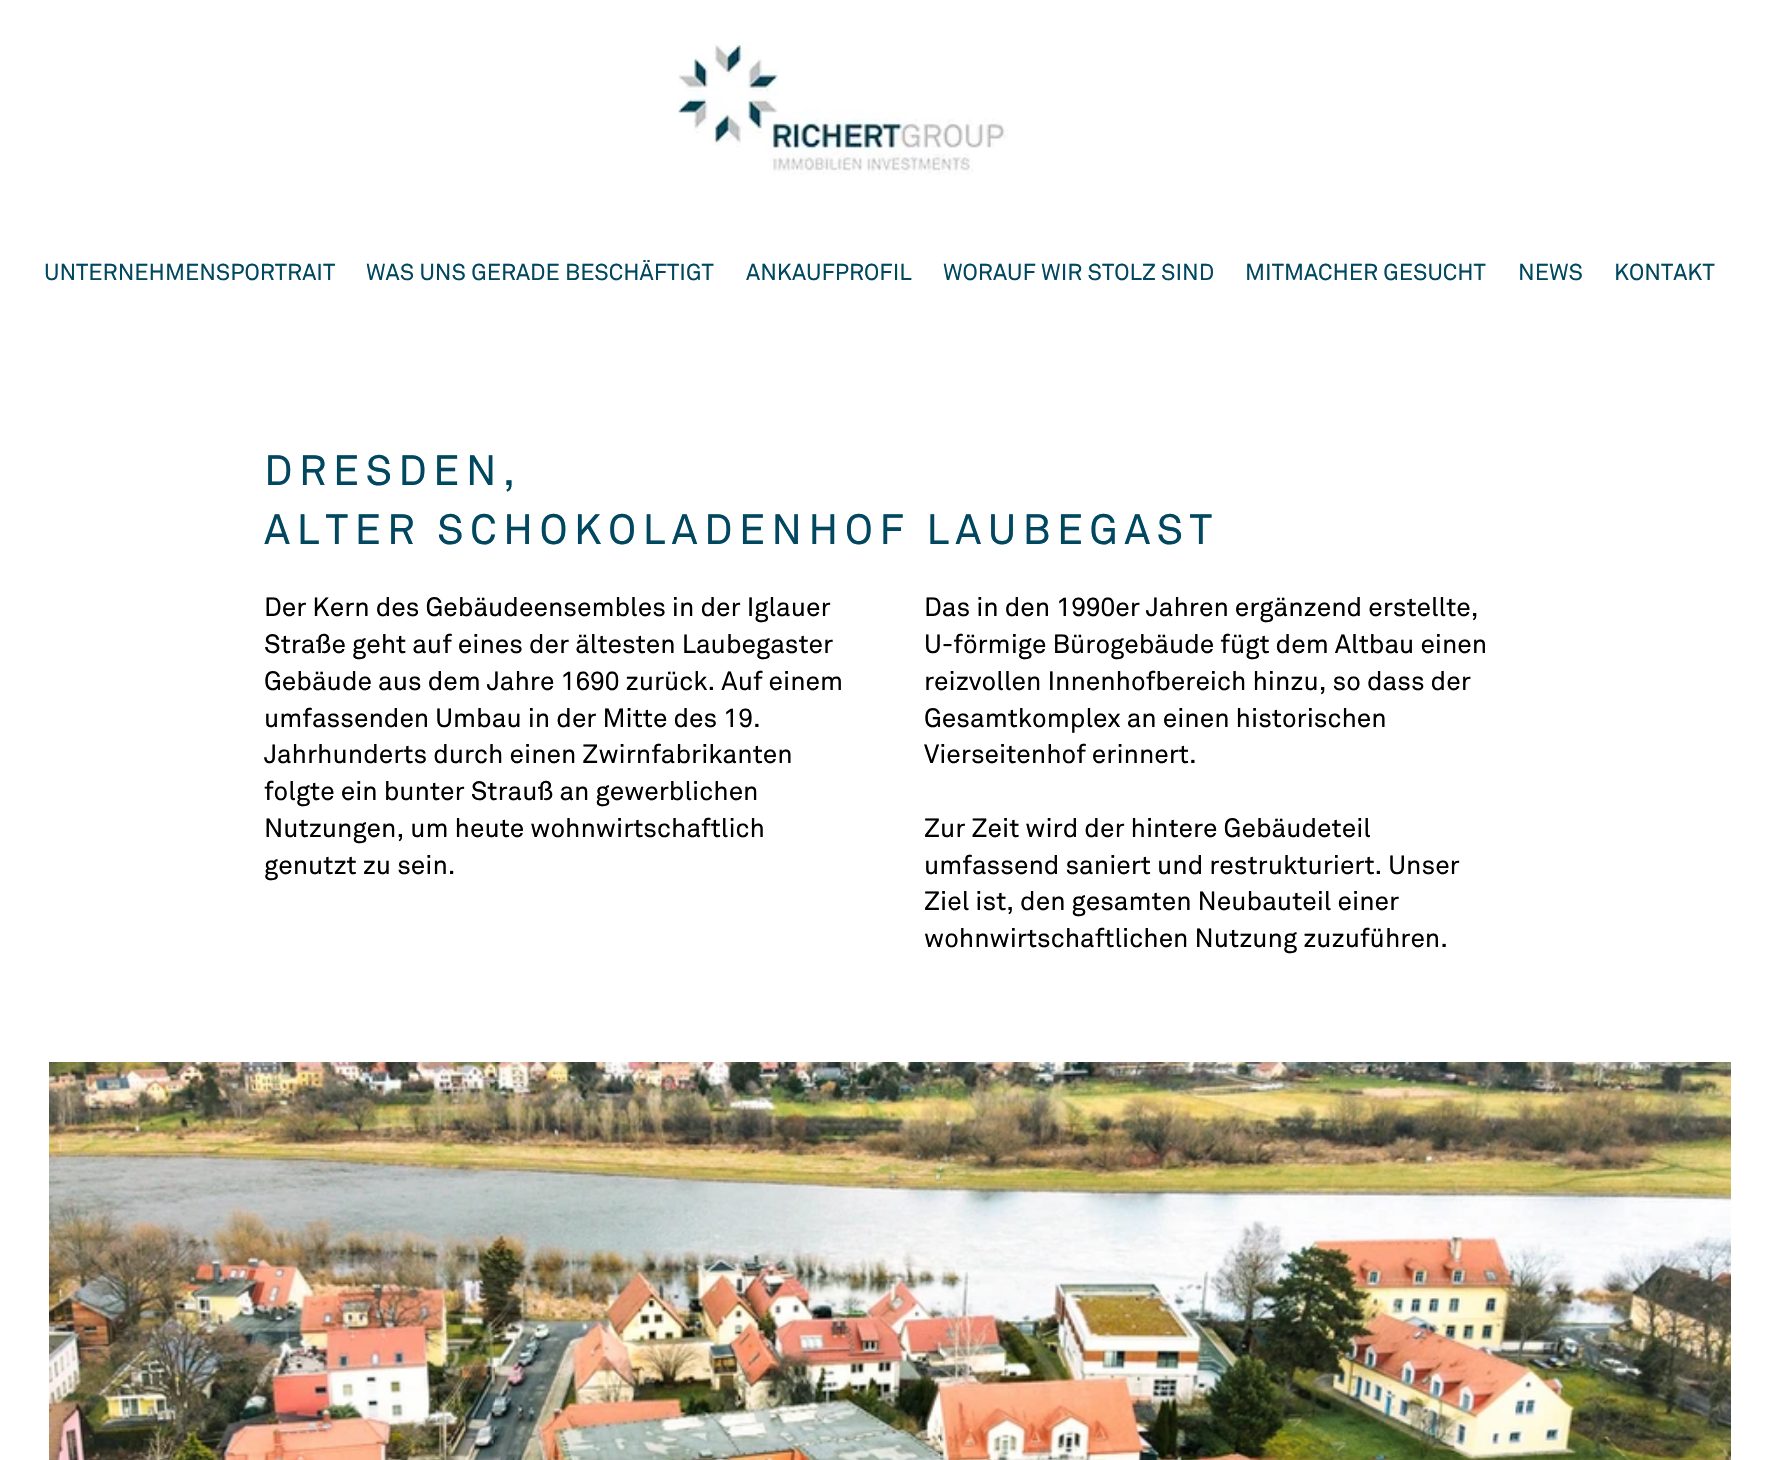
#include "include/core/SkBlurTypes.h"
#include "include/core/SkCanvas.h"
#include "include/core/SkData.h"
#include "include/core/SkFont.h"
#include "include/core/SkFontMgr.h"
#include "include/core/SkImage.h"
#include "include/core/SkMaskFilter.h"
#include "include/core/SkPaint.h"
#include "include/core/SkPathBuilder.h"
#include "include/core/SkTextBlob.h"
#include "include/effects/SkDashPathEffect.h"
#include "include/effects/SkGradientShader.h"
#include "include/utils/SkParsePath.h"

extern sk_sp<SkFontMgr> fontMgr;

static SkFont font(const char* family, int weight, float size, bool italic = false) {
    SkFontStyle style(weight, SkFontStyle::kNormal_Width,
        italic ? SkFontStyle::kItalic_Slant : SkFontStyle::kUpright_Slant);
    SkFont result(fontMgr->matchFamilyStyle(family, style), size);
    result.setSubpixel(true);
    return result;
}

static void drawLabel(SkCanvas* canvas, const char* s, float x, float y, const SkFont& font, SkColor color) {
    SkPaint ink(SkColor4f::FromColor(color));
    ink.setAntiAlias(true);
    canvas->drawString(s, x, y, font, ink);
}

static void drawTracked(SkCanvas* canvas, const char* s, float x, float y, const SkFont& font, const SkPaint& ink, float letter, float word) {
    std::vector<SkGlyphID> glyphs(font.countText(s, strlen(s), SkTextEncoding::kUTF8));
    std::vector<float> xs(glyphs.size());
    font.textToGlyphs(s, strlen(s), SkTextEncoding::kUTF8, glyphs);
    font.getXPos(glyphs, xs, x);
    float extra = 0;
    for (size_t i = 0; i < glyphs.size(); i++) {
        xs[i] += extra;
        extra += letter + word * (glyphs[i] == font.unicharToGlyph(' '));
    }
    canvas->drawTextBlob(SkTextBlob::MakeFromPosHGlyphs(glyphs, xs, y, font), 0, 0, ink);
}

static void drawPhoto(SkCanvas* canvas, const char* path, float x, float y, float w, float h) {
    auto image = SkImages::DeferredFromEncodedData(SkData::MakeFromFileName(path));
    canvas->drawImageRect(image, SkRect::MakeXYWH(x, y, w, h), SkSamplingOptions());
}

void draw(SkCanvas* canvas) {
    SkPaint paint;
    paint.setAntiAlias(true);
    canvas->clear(0xFFFFFFFF);
    drawPhoto(canvas, "assets/img1.png", 678, 42, 330, 133);
    SkFont font1 = font("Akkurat", 400, 22.75f);
    drawLabel(canvas, "UNTERNEHMENSPORTRAIT", 44, 280, font1, 0xFF00475F);
    drawLabel(canvas, "WAS UNS GERADE BESCHÄFTIGT", 366, 280, font1, 0xFF00475F);
    drawLabel(canvas, "ANKAUFPROFIL", 746, 280, font1, 0xFF00475F);
    drawLabel(canvas, "WORAUF WIR STOLZ SIND", 943, 280, font1, 0xFF00475F);
    drawLabel(canvas, "MITMACHER GESUCHT", 1245, 280, font1, 0xFF00475F);
    drawLabel(canvas, "NEWS", 1518, 280, font1, 0xFF00475F);
    drawLabel(canvas, "KONTAKT", 1614, 280, font1, 0xFF00475F);
    SkFont font2 = font("Akkurat", 400, 42);
    paint.setColor(0xFF00475F);
    drawTracked(canvas, "DRESDEN,", 264, 485, font2, paint, 6.3f, 0);
    drawTracked(canvas, "ALTER SCHOKOLADENHOF LAUBEGAST", 264, 544, font2, paint, 6.3f, 0);
    SkFont font3 = font("Akkurat", 400, 26.25f);
    drawLabel(canvas, "Der Kern des Gebäudeensembles in der Iglauer", 264, 616, font3, 0xFF000000);
    drawLabel(canvas, "Straße geht auf eines der ältesten Laubegaster", 264, 653, font3, 0xFF000000);
    drawLabel(canvas, "Gebäude aus dem Jahre 1690 zurück. Auf einem", 264, 690, font3, 0xFF000000);
    drawLabel(canvas, "umfassenden Umbau in der Mitte des 19.", 264, 727, font3, 0xFF000000);
    drawLabel(canvas, "Jahrhunderts durch einen Zwirnfabrikanten", 264, 763, font3, 0xFF000000);
    drawLabel(canvas, "folgte ein bunter Strauß an gewerblichen", 264, 800, font3, 0xFF000000);
    drawLabel(canvas, "Nutzungen, um heute wohnwirtschaftlich", 264, 837, font3, 0xFF000000);
    drawLabel(canvas, "genutzt zu sein.", 264, 874, font3, 0xFF000000);
    drawLabel(canvas, "Das in den 1990er Jahren ergänzend erstellte,", 924, 616, font3, 0xFF000000);
    drawLabel(canvas, "U-förmige Bürogebäude fügt dem Altbau einen", 924, 653, font3, 0xFF000000);
    drawLabel(canvas, "reizvollen Innenhofbereich hinzu, so dass der", 924, 690, font3, 0xFF000000);
    drawLabel(canvas, "Gesamtkomplex an einen historischen", 924, 727, font3, 0xFF000000);
    drawLabel(canvas, "Vierseitenhof erinnert.", 924, 763, font3, 0xFF000000);
    drawLabel(canvas, "Zur Zeit wird der hintere Gebäudeteil", 924, 837, font3, 0xFF000000);
    drawLabel(canvas, "umfassend saniert und restrukturiert. Unser", 924, 874, font3, 0xFF000000);
    drawLabel(canvas, "Ziel ist, den gesamten Neubauteil einer", 924, 910, font3, 0xFF000000);
    drawLabel(canvas, "wohnwirtschaftlichen Nutzung zuzuführen.", 924, 947, font3, 0xFF000000);
    drawPhoto(canvas, "assets/img2.png", 49, 1062, 1682, 398);
}
